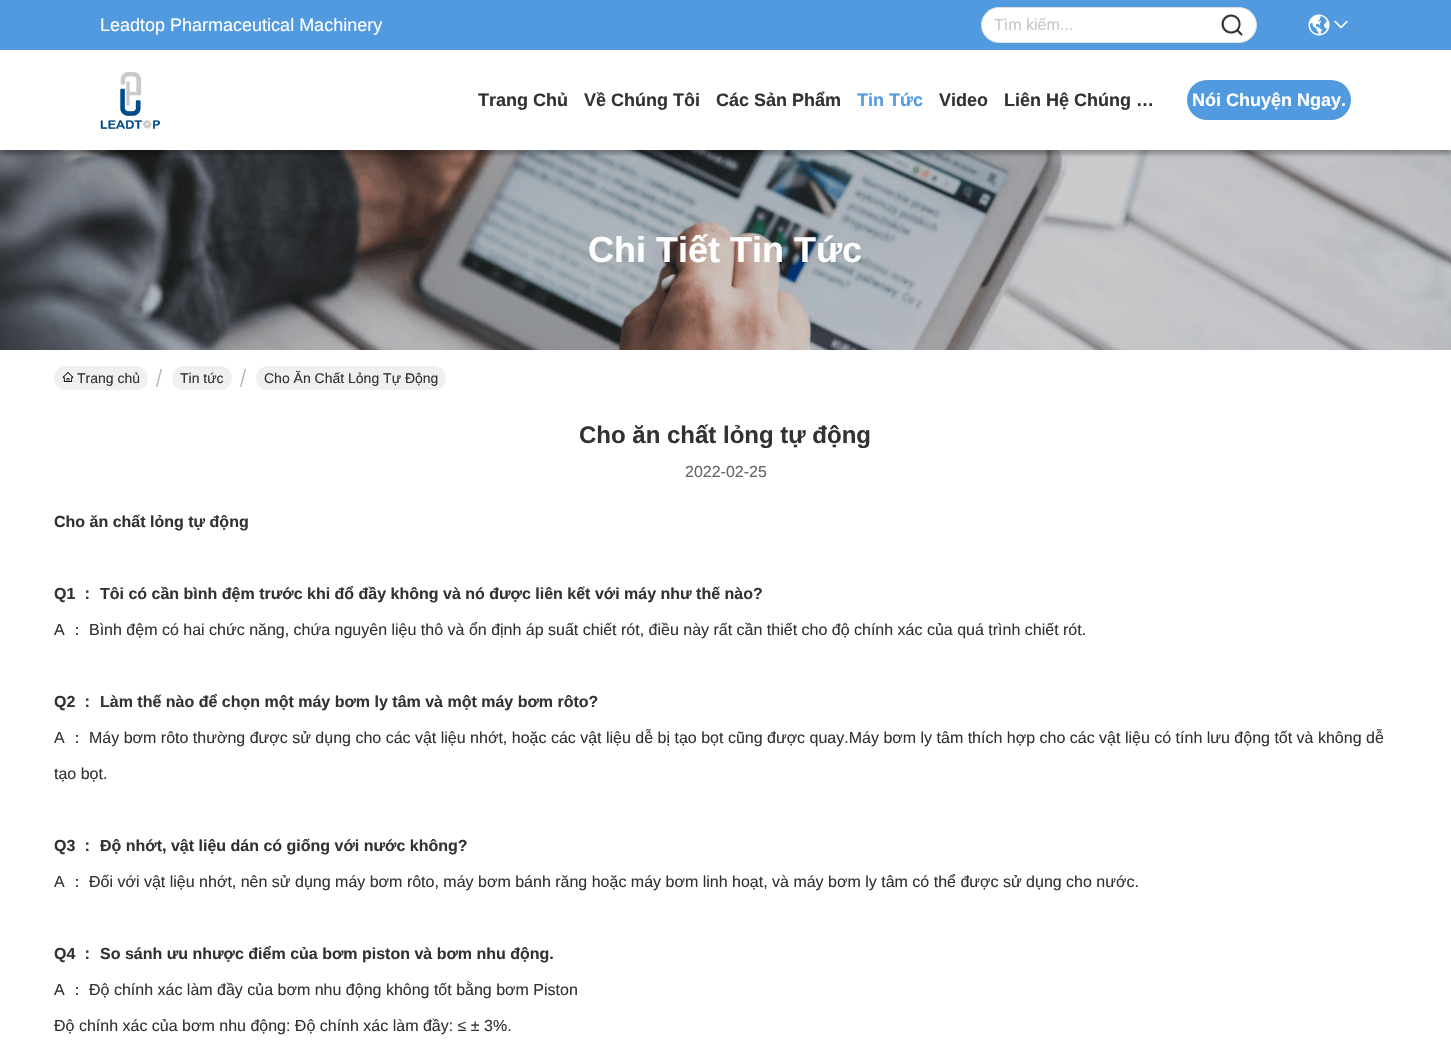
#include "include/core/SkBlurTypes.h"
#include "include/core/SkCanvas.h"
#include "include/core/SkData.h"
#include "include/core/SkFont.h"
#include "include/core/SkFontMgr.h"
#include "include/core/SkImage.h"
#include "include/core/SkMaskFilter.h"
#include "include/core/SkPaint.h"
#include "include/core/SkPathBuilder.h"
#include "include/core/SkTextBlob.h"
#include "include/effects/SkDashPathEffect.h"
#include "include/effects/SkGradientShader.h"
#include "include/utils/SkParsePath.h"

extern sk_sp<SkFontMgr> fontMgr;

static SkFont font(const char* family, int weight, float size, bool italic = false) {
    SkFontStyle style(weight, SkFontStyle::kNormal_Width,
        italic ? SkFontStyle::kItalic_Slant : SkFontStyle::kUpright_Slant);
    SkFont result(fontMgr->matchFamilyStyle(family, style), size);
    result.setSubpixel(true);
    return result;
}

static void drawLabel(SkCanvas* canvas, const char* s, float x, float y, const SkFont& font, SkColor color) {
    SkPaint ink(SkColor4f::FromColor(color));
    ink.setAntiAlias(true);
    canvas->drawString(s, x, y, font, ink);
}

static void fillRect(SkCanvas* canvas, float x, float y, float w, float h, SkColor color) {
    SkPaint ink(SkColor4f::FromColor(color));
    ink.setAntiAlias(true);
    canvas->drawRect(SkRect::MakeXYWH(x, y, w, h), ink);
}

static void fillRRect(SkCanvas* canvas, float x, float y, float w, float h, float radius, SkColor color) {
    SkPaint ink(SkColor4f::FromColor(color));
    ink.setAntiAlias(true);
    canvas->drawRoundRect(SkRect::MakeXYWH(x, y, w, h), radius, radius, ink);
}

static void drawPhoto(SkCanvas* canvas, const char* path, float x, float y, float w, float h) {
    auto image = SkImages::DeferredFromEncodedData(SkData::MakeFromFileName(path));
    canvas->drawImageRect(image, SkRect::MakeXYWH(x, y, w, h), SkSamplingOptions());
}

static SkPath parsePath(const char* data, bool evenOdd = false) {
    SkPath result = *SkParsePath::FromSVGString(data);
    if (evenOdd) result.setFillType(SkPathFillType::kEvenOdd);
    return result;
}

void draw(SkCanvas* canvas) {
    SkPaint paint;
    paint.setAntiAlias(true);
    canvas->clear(0xFFFFFFFF);
    drawPhoto(canvas, "assets/img5.png", 0, 150, 1451, 200);
    paint.setColor(0x26000000);
    paint.setMaskFilter(SkMaskFilter::MakeBlur(kNormal_SkBlurStyle, 2));
    canvas->drawRect(SkRect::MakeXYWH(0, 4, 1451, 150), paint);
    paint.setMaskFilter(nullptr);
    fillRect(canvas, 0, 50, 1451, 100, 0xFFFFFFFF);
    fillRect(canvas, 0, 0, 1451, 50, 0xFF519AE0);
    SkFont font1 = font("Liberation Sans", 400, 18);
    drawLabel(canvas, "Leadtop Pharmaceutical Machinery", 100, 31, font1, 0xFFFFFFFF);
    paint.setColor(0xFFFFFFFF);
    canvas->drawRoundRect(SkRect::MakeXYWH(981.5f, 7.5f, 275, 35), 17.5f, 17.5f, paint);
    paint.setStroke(true);
    paint.setStrokeWidth(1);
    paint.setColor(0xFFE0E0E0);
    canvas->drawRoundRect(SkRect::MakeXYWH(981.5f, 7.5f, 275, 35), 17.5f, 17.5f, paint);
    SkFont font2 = font("Liberation Sans", 400, 16);
    drawLabel(canvas, "Tìm kiếm...", 994, 30, font2, 0xFFC7C7C7);
    drawPhoto(canvas, "assets/img1.png", 1221, 14, 22, 22);
    drawPhoto(canvas, "assets/img2.png", 1308, 14, 22, 22);
    drawPhoto(canvas, "assets/img3.png", 1334, 20, 14, 9);
    canvas->save();
    canvas->clipRect(SkRect::MakeXYWH(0, 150, 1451, 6));
    paint.setStroke(false);
    paint.setColor(0x26000000);
    paint.setMaskFilter(SkMaskFilter::MakeBlur(kNormal_SkBlurStyle, 2));
    canvas->drawRect(SkRect::MakeXYWH(0, 54, 1451, 100), paint);
    paint.setMaskFilter(nullptr);
    canvas->restore();
    drawPhoto(canvas, "assets/img4.png", 100, 72, 60, 57);
    SkFont font3 = font("Liberation Sans", 700, 18);
    drawLabel(canvas, "Trang Chủ", 478, 106, font3, 0xFF323232);
    drawLabel(canvas, "Về Chúng Tôi", 584, 106, font3, 0xFF323232);
    drawLabel(canvas, "Các Sản Phẩm", 716, 106, font3, 0xFF323232);
    drawLabel(canvas, "Tin Tức", 857, 106, font3, 0xFF519AE0);
    drawLabel(canvas, "Video", 939, 106, font3, 0xFF323232);
    drawLabel(canvas, "Liên Hệ Chúng …", 1004, 106, font3, 0xFF323232);
    fillRRect(canvas, 1187, 80, 164, 40, 20, 0xFF519AE0);
    drawLabel(canvas, "Nói Chuyện Ngay.", 1192, 106, font3, 0xFFFFFFFF);
    SkFont font4 = font("Liberation Sans", 700, 36);
    drawLabel(canvas, "Chi Tiết Tin Tức", 588, 262, font4, 0xFFFFFFFF);
    fillRRect(canvas, 54, 366, 94, 24, 12, 0xFFF0F0F0);
    drawPhoto(canvas, "assets/img6.png", 62, 372, 12, 10);
    SkFont font5 = font("Liberation Sans", 400, 14);
    drawLabel(canvas, "Trang chủ", 77, 383, font5, 0xFF323232);
    paint.setColor(0xFFB4B4B4);
    canvas->drawPath(parsePath("M162 369L157.5 387H156L160.5 369Z", true), paint);
    fillRRect(canvas, 172, 366, 60, 24, 12, 0xFFF0F0F0);
    drawLabel(canvas, "Tin tức", 180, 383, font5, 0xFF323232);
    canvas->drawPath(parsePath("M246 369L241.5 387H240L244.5 369Z", true), paint);
    fillRRect(canvas, 256, 366, 190, 24, 12, 0xFFF0F0F0);
    drawLabel(canvas, "Cho Ăn Chất Lỏng Tự Động", 264, 383, font5, 0xFF323232);
    SkFont font6 = font("Liberation Sans", 700, 24);
    drawLabel(canvas, "Cho ăn chất lỏng tự động", 579, 443, font6, 0xFF323232);
    drawLabel(canvas, "2022-02-25", 685, 477, font2, 0xFF646464);
    SkFont font7 = font("Liberation Sans", 700, 16);
    drawLabel(canvas, "Cho ăn chất lỏng tự động", 54, 527, font7, 0xFF323232);
    drawLabel(canvas, "Q1", 54, 599, font7, 0xFF323232);
    SkFont font8 = font("WenQuanYi Zen Hei", 700, 16);
    drawLabel(canvas, "：", 79, 599, font8, 0xFF323232);
    drawLabel(canvas, "Tôi có cần bình đệm trước khi đổ đầy không và nó được liên kết với máy như thế nào?", 100, 599, font7, 0xFF323232);
    drawLabel(canvas, "A", 54, 635, font2, 0xFF323232);
    SkFont font9 = font("WenQuanYi Zen Hei", 500, 16);
    drawLabel(canvas, "：", 69, 635, font9, 0xFF323232);
    drawLabel(canvas, "Bình đệm có hai chức năng, chứa nguyên liệu thô và ổn định áp suất chiết rót, điều này rất cần thiết cho độ chính xác của quá trình chiết rót.", 89, 635, font2, 0xFF323232);
    drawLabel(canvas, "Q2", 54, 707, font7, 0xFF323232);
    drawLabel(canvas, "：", 79, 707, font8, 0xFF323232);
    drawLabel(canvas, "Làm thế nào để chọn một máy bơm ly tâm và một máy bơm rôto?", 100, 707, font7, 0xFF323232);
    drawLabel(canvas, "A", 54, 743, font2, 0xFF323232);
    drawLabel(canvas, "：", 69, 743, font9, 0xFF323232);
    drawLabel(canvas, "Máy bơm rôto thường được sử dụng cho các vật liệu nhớt, hoặc các vật liệu dễ bị tạo bọt cũng được quay.Máy bơm ly tâm thích hợp cho các vật liệu có tính lưu động tốt và không dễ", 89, 743, font2, 0xFF323232);
    drawLabel(canvas, "tạo bọt.", 54, 779, font2, 0xFF323232);
    drawLabel(canvas, "Q3", 54, 851, font7, 0xFF323232);
    drawLabel(canvas, "：", 79, 851, font8, 0xFF323232);
    drawLabel(canvas, "Độ nhớt, vật liệu dán có giống với nước không?", 100, 851, font7, 0xFF323232);
    drawLabel(canvas, "A", 54, 887, font2, 0xFF323232);
    drawLabel(canvas, "：", 69, 887, font9, 0xFF323232);
    drawLabel(canvas, "Đối với vật liệu nhớt, nên sử dụng máy bơm rôto, máy bơm bánh răng hoặc máy bơm linh hoạt, và máy bơm ly tâm có thể được sử dụng cho nước.", 89, 887, font2, 0xFF323232);
    drawLabel(canvas, "Q4", 54, 959, font7, 0xFF323232);
    drawLabel(canvas, "：", 79, 959, font8, 0xFF323232);
    drawLabel(canvas, "So sánh ưu nhược điểm của bơm piston và bơm nhu động.", 100, 959, font7, 0xFF323232);
    drawLabel(canvas, "A", 54, 995, font2, 0xFF323232);
    drawLabel(canvas, "：", 69, 995, font9, 0xFF323232);
    drawLabel(canvas, "Độ chính xác làm đầy của bơm nhu động không tốt bằng bơm Piston", 89, 995, font2, 0xFF323232);
    drawLabel(canvas, "Độ chính xác của bơm nhu động: Độ chính xác làm đầy: ≤ ± 3%.", 54, 1031, font2, 0xFF323232);
}
